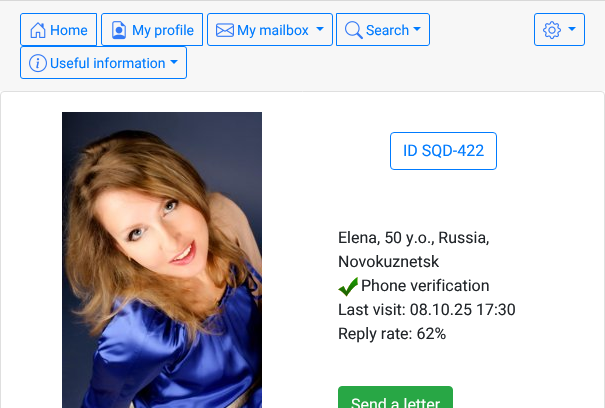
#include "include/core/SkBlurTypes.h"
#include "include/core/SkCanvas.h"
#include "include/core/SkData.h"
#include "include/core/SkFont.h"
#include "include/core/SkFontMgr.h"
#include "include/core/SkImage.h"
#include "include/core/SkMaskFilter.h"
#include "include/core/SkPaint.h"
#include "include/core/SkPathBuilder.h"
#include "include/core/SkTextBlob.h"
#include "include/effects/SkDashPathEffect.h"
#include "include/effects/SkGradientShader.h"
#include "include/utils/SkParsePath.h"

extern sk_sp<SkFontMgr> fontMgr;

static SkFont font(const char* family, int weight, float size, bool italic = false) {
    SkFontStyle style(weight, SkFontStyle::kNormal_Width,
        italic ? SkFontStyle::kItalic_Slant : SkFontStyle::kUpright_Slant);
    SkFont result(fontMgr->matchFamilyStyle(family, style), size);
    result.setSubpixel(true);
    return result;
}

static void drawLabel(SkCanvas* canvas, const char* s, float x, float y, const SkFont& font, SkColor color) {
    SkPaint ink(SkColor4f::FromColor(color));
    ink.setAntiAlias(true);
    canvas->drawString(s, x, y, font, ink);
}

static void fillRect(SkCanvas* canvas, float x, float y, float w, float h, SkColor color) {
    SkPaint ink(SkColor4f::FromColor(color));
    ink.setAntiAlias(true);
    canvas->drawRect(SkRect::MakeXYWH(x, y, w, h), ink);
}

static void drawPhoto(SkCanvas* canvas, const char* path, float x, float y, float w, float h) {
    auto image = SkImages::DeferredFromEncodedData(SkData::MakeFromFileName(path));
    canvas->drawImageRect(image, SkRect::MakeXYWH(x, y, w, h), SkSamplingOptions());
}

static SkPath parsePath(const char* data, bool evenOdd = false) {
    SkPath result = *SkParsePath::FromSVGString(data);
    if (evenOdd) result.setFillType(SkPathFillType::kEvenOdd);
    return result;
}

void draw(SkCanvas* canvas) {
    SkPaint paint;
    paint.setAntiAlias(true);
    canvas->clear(0xFFFFFFFF);
    fillRect(canvas, 0, 1, 605, 90, 0xFFF7F7F7);
    fillRect(canvas, 0, 0, 605, 1, 0xFFD8D8D8);
    paint.setStroke(true);
    paint.setStrokeWidth(1);
    paint.setColor(0xFF007BFF);
    canvas->drawPath(parsePath("M23 13.5H96.5V45.5H23C21.5 45.5 20.5 44.5 20.5 43V16C20.5 14.5 21.5 13.5 23 13.5Z"), paint);
    drawPhoto(canvas, "assets/img1.png", 30, 22, 16, 16);
    SkFont font1 = font("Roboto", 400, 14);
    drawLabel(canvas, "Home", 50, 35, font1, 0xFF007BFF);
    canvas->drawPath(parsePath("M104 13.5H202.5V45.5H104C102.5 45.5 101.5 44.5 101.5 43V16C101.5 14.5 102.5 13.5 104 13.5Z"), paint);
    drawPhoto(canvas, "assets/img2.png", 112, 21, 14, 19);
    drawLabel(canvas, "My profile", 132, 35, font1, 0xFF007BFF);
    canvas->drawRoundRect(SkRect::MakeXYWH(207.5f, 13.5f, 125, 32), 2.5f, 2.5f, paint);
    drawPhoto(canvas, "assets/img3.png", 216, 23, 18, 14);
    drawLabel(canvas, "My mailbox", 237, 35, font1, 0xFF007BFF);
    paint.setStroke(false);
    canvas->drawPath(parsePath("M316 27H324L320 31Z"), paint);
    paint.setStroke(true);
    canvas->drawPath(parsePath("M336.5 13.5H427C428.5 13.5 429.5 14.5 429.5 16V43C429.5 44.5 428.5 45.5 427 45.5H336.5Z"), paint);
    drawPhoto(canvas, "assets/img4.png", 345, 21, 18, 19);
    drawLabel(canvas, "Search", 366, 35, font1, 0xFF007BFF);
    paint.setStroke(false);
    canvas->drawPath(parsePath("M413 27H421L417 31Z"), paint);
    paint.setStroke(true);
    canvas->drawRoundRect(SkRect::MakeXYWH(534.5f, 13.5f, 50, 32), 2.5f, 2.5f, paint);
    drawPhoto(canvas, "assets/img5.png", 543, 21, 18, 19);
    paint.setStroke(false);
    canvas->drawPath(parsePath("M568 27H576L572 31Z"), paint);
    paint.setStroke(true);
    canvas->drawRoundRect(SkRect::MakeXYWH(20.5f, 46.5f, 166, 32), 2.5f, 2.5f, paint);
    drawPhoto(canvas, "assets/img6.png", 29, 54, 18, 19);
    drawLabel(canvas, "Useful information", 50, 68, font1, 0xFF007BFF);
    paint.setStroke(false);
    canvas->drawPath(parsePath("M170 60H178L174 64Z"), paint);
    paint.setStroke(true);
    paint.setColor(0xFFDFDFDF);
    canvas->drawRoundRect(SkRect::MakeXYWH(0.5f, 91.5f, 604, 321), 3.5f, 3.5f, paint);
    drawPhoto(canvas, "assets/img7.png", 62, 112, 200, 296);
    paint.setColor(0xFF007BFF);
    canvas->drawRoundRect(SkRect::MakeXYWH(390.5f, 132.5f, 106, 37), 3.5f, 3.5f, paint);
    SkFont font2 = font("Roboto", 400, 16);
    drawLabel(canvas, "ID SQD-422", 403, 156, font2, 0xFF007BFF);
    drawLabel(canvas, "Elena, 50 y.o., Russia,", 338, 243, font2, 0xFF212529);
    drawLabel(canvas, "Novokuznetsk", 338, 267, font2, 0xFF212529);
    drawPhoto(canvas, "assets/img8.png", 338, 277, 20, 20);
    drawLabel(canvas, "Phone verification", 361, 291, font2, 0xFF212529);
    drawLabel(canvas, "Last visit: 08.10.25 17:30", 338, 315, font2, 0xFF212529);
    drawLabel(canvas, "Reply rate: 62%", 338, 339, font2, 0xFF212529);
    paint.setStroke(false);
    paint.setColor(0xFF28A745);
    canvas->drawRoundRect(SkRect::MakeXYWH(338.5f, 386.5f, 114, 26), 3.5f, 3.5f, paint);
    paint.setStroke(true);
    canvas->drawRoundRect(SkRect::MakeXYWH(338.5f, 386.5f, 114, 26), 3.5f, 3.5f, paint);
    drawLabel(canvas, "Send a letter", 351, 410, font2, 0xFFFFFFFF);
}
